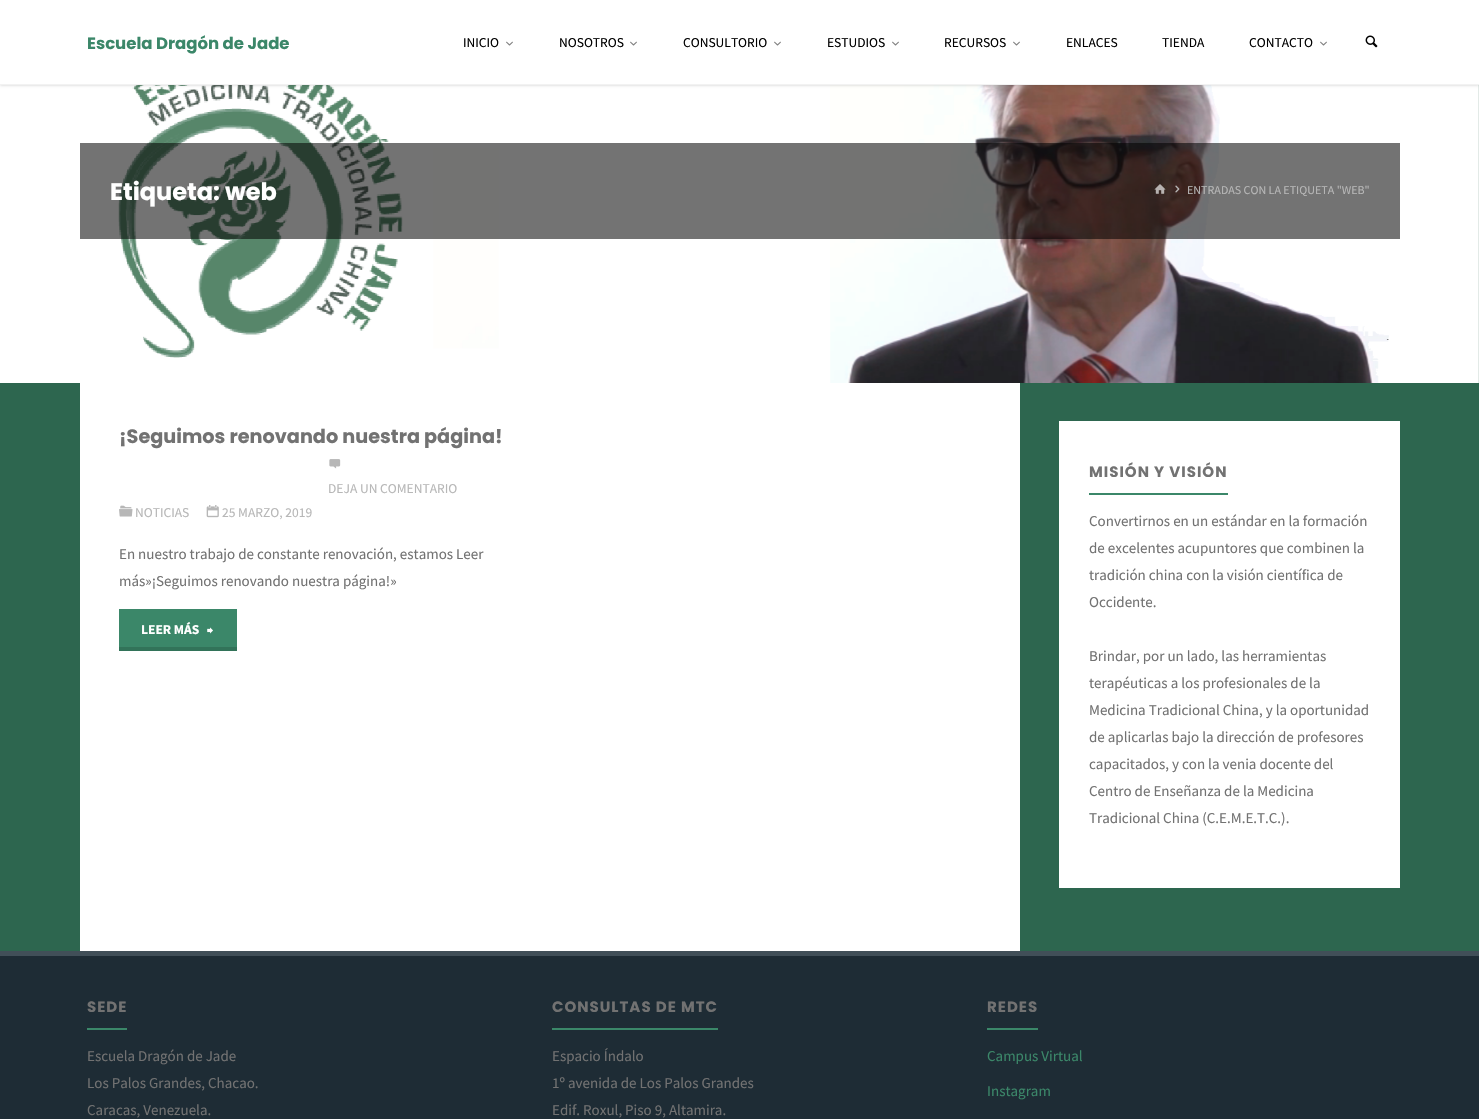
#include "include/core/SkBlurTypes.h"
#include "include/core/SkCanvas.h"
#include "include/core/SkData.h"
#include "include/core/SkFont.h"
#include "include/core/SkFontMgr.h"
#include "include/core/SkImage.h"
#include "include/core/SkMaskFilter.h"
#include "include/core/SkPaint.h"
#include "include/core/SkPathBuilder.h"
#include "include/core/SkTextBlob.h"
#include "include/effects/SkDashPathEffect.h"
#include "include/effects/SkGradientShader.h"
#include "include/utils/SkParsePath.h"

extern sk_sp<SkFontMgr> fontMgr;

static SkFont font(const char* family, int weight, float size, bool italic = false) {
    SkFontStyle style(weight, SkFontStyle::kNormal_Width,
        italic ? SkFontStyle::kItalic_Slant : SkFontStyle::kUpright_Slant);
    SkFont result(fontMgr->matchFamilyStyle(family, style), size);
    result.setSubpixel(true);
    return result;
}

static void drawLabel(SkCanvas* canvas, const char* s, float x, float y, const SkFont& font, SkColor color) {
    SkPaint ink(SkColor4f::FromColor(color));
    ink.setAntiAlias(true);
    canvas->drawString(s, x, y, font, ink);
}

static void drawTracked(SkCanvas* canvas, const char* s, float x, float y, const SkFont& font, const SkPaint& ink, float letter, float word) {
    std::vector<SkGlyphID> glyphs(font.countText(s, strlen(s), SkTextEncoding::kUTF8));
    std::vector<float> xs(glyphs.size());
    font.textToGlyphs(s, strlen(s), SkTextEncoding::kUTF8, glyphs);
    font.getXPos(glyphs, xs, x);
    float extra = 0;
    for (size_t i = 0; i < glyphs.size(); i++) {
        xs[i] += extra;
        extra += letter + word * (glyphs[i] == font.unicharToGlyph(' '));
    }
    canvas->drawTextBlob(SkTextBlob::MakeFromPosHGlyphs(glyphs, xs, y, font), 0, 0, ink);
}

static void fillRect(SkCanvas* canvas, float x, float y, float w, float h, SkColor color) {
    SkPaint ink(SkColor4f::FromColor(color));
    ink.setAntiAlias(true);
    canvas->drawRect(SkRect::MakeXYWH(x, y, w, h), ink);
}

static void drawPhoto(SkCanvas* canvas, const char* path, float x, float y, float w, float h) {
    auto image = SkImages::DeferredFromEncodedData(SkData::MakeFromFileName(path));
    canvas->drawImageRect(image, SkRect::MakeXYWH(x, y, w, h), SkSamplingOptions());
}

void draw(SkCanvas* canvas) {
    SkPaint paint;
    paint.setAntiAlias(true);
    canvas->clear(0xFF2D664F);
    drawPhoto(canvas, "assets/img3.png", 0, 85, 1479, 298);
    paint.setColor(0x33000000);
    paint.setMaskFilter(SkMaskFilter::MakeBlur(kNormal_SkBlurStyle, 1.5f));
    canvas->drawRect(SkRect::MakeXYWH(0, 0, 1479, 85), paint);
    paint.setMaskFilter(nullptr);
    fillRect(canvas, 0, 0, 1479, 84, 0xFFFFFFFF);
    fillRect(canvas, 0, 84, 1479, 1, 0xFFF2F2F2);
    SkFont font1 = font("Poppins", 700, 16.5f);
    drawLabel(canvas, "Escuela Dragón de Jade", 87, 49, font1, 0xFF3B8769);
    SkFont font2 = font("Source Sans Pro", 400, 13.5f);
    drawLabel(canvas, "INICIO", 463, 47, font2, 0xFF000000);
    drawPhoto(canvas, "assets/img1.png", 506, 41, 7, 5);
    drawLabel(canvas, "NOSOTROS", 559, 47, font2, 0xFF000000);
    drawPhoto(canvas, "assets/img1.png", 630, 41, 7, 5);
    drawLabel(canvas, "CONSULTORIO", 683, 47, font2, 0xFF000000);
    drawPhoto(canvas, "assets/img1.png", 774, 41, 7, 5);
    drawLabel(canvas, "ESTUDIOS", 827, 47, font2, 0xFF000000);
    drawPhoto(canvas, "assets/img1.png", 892, 41, 7, 5);
    drawLabel(canvas, "RECURSOS", 944, 47, font2, 0xFF000000);
    drawPhoto(canvas, "assets/img1.png", 1013, 41, 7, 5);
    drawLabel(canvas, "ENLACES", 1066, 47, font2, 0xFF000000);
    drawLabel(canvas, "TIENDA", 1162, 47, font2, 0xFF000000);
    drawLabel(canvas, "CONTACTO", 1249, 47, font2, 0xFF000000);
    drawPhoto(canvas, "assets/img1.png", 1320, 41, 7, 5);
    drawPhoto(canvas, "assets/img2.png", 1365, 35, 13, 13);
    fillRect(canvas, 80, 143, 1320, 96, 0x8C000000);
    SkFont font3 = font("Poppins", 700, 24);
    drawLabel(canvas, "Etiqueta: web", 110, 200, font3, 0xFFFFFFFF);
    drawPhoto(canvas, "assets/img4.png", 1154, 184, 12, 10);
    drawPhoto(canvas, "assets/img5.png", 1175, 185, 5, 8);
    SkFont font4 = font("Source Sans Pro", 400, 12);
    drawLabel(canvas, "ENTRADAS CON LA ETIQUETA \"WEB\"", 1187, 194, font4, 0xFFB7B7B7);
    fillRect(canvas, 80, 383, 940, 568, 0xFFFFFFFF);
    SkFont font5 = font("Poppins", 700, 19.25f);
    drawLabel(canvas, "¡Seguimos renovando nuestra página!", 119, 443, font5, 0xFF727272);
    drawPhoto(canvas, "assets/img6.png", 329, 459, 12, 10);
    drawLabel(canvas, "DEJA UN COMENTARIO", 328, 493, font2, 0xFFB7B7B7);
    drawPhoto(canvas, "assets/img7.png", 119, 505, 14, 12);
    drawLabel(canvas, "NOTICIAS", 135, 517, font2, 0xFFB7B7B7);
    drawPhoto(canvas, "assets/img8.png", 206, 505, 13, 13);
    drawLabel(canvas, "25 MARZO, 2019", 222, 517, font2, 0xFFB7B7B7);
    SkFont font6 = font("Source Sans Pro", 400, 15);
    drawLabel(canvas, "En nuestro trabajo de constante renovación, estamos Leer", 119, 559, font6, 0xFF727272);
    drawLabel(canvas, "más»¡Seguimos renovando nuestra página!»", 119, 586, font6, 0xFF727272);
    fillRect(canvas, 119, 609, 118, 38, 0xFF3B8769);
    SkFont font7 = font("Source Sans Pro", 700, 13.5f);
    drawLabel(canvas, "LEER MÁS", 141, 634, font7, 0xFFFFFFFF);
    drawPhoto(canvas, "assets/img9.png", 207, 627, 6, 7);
    fillRect(canvas, 119, 647, 118, 4, 0xFF327359);
    fillRect(canvas, 1059, 421, 341, 467, 0xFFFFFFFF);
    SkFont font8 = font("Poppins", 700, 15);
    paint.setColor(0xFF727272);
    drawTracked(canvas, "MISIÓN Y VISIÓN", 1089, 477, font8, paint, 1, 0);
    fillRect(canvas, 1089, 493, 139, 2, 0xFF3B8769);
    drawLabel(canvas, "Convertirnos en un estándar en la formación", 1089, 526, font6, 0xFF727272);
    drawLabel(canvas, "de excelentes acupuntores que combinen la", 1089, 553, font6, 0xFF727272);
    drawLabel(canvas, "tradición china con la visión científica de", 1089, 580, font6, 0xFF727272);
    drawLabel(canvas, "Occidente.", 1089, 607, font6, 0xFF727272);
    drawLabel(canvas, "Brindar, por un lado, las herramientas", 1089, 661, font6, 0xFF727272);
    drawLabel(canvas, "terapéuticas a los profesionales de la", 1089, 688, font6, 0xFF727272);
    drawLabel(canvas, "Medicina Tradicional China, y la oportunidad", 1089, 715, font6, 0xFF727272);
    drawLabel(canvas, "de aplicarlas bajo la dirección de profesores", 1089, 742, font6, 0xFF727272);
    drawLabel(canvas, "capacitados, y con la venia docente del", 1089, 769, font6, 0xFF727272);
    drawLabel(canvas, "Centro de Enseñanza de la Medicina", 1089, 796, font6, 0xFF727272);
    drawLabel(canvas, "Tradicional China (C.E.M.E.T.C.).", 1089, 823, font6, 0xFF727272);
    fillRect(canvas, 0, 956, 1479, 163, 0xFF1E2C35);
    fillRect(canvas, 0, 951, 1479, 5, 0xFF414F58);
    drawTracked(canvas, "SEDE", 87, 1012, font8, paint, 1, 0);
    fillRect(canvas, 87, 1028, 40, 2, 0xFF3B8769);
    drawLabel(canvas, "Escuela Dragón de Jade", 87, 1061, font6, 0xFF727272);
    drawLabel(canvas, "Los Palos Grandes, Chacao.", 87, 1088, font6, 0xFF727272);
    drawLabel(canvas, "Caracas, Venezuela.", 87, 1115, font6, 0xFF727272);
    drawTracked(canvas, "CONSULTAS DE MTC", 552, 1012, font8, paint, 1, 0);
    fillRect(canvas, 552, 1028, 166, 2, 0xFF3B8769);
    drawLabel(canvas, "Espacio Índalo", 552, 1061, font6, 0xFF727272);
    drawLabel(canvas, "1º avenida de Los Palos Grandes", 552, 1088, font6, 0xFF727272);
    drawLabel(canvas, "Edif. Roxul, Piso 9, Altamira.", 552, 1115, font6, 0xFF727272);
    drawTracked(canvas, "REDES", 987, 1012, font8, paint, 1, 0);
    fillRect(canvas, 987, 1028, 51, 2, 0xFF3B8769);
    drawLabel(canvas, "Campus Virtual", 987, 1061, font6, 0xFF3B8769);
    drawLabel(canvas, "Instagram", 987, 1096, font6, 0xFF3B8769);
}
